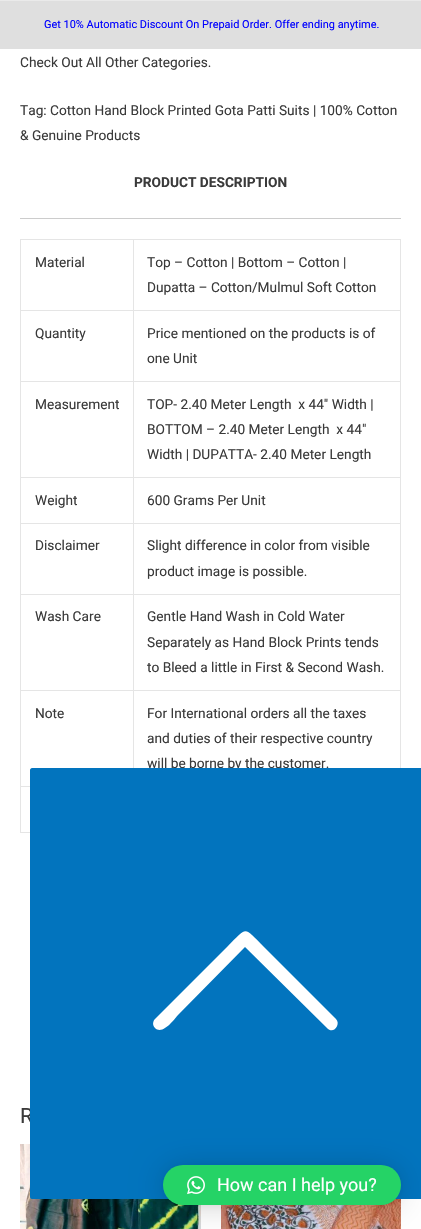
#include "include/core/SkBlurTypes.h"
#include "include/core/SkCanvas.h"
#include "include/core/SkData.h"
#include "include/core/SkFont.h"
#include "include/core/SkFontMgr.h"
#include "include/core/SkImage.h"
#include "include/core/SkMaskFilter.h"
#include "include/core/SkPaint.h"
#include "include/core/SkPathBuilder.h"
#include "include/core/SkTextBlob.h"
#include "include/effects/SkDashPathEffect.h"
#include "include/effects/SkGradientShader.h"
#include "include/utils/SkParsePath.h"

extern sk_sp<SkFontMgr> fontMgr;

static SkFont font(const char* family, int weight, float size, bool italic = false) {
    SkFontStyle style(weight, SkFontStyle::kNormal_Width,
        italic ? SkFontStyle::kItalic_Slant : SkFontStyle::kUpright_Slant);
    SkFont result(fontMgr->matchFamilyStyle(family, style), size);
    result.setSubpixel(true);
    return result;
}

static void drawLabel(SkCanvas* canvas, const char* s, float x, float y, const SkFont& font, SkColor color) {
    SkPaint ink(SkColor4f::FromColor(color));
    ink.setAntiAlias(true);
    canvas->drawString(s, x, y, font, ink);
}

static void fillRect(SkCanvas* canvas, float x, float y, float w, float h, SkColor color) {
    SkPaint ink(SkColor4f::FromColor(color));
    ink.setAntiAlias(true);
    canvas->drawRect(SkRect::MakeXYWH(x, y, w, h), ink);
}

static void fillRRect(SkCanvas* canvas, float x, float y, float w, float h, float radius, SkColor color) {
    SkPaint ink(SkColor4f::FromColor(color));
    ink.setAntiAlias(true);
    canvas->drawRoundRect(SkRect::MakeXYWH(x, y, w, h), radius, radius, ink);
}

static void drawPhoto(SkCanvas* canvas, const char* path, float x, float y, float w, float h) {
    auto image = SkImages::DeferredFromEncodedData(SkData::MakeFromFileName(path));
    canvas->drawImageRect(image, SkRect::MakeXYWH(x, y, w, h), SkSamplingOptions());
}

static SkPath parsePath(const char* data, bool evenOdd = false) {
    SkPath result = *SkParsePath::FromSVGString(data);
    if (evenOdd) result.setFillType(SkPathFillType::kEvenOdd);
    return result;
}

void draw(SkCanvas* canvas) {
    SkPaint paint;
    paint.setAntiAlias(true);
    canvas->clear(0xFFFFFFFF);
    fillRect(canvas, 0, 1, 421, 48, 0xFFDFDFDF);
    fillRect(canvas, 0, 0, 421, 1, 0xFFEAEAEA);
    SkFont font1 = font("Roboto", 400, 10.95f);
    drawLabel(canvas, "Get 10% Automatic Discount On Prepaid Order. Offer ending anytime.", 44, 28, font1, 0xFF0000FF);
    SkFont font2 = font("Roboto", 400, 13.7f);
    drawLabel(canvas, "Check Out All Other Categories.", 20, 67, font2, 0xFF3A3A3A);
    drawLabel(canvas, "Tag: Cotton Hand Block Printed Gota Patti Suits | 100% Cotton", 20, 115, font2, 0xFF3A3A3A);
    drawLabel(canvas, "& Genuine Products", 20, 140, font2, 0xFF3A3A3A);
    SkFont font3 = font("Roboto", 700, 13.7f);
    drawLabel(canvas, "PRODUCT DESCRIPTION", 134, 187, font3, 0xFF3A3A3A);
    fillRect(canvas, 20, 218, 381, 1, 0xFFCCCCCC);
    fillRect(canvas, 20, 239, 381, 1, 0xFFE5E5E5);
    fillRect(canvas, 20, 239, 1, 594, 0xFFE5E5E5);
    fillRect(canvas, 133, 240, 1, 528, 0xFFE5E5E5);
    fillRect(canvas, 21, 310, 113, 1, 0xFFE5E5E5);
    drawLabel(canvas, "Material", 35, 267, font2, 0xFF3A3A3A);
    fillRect(canvas, 400, 240, 1, 528, 0xFFE5E5E5);
    fillRect(canvas, 134, 310, 267, 1, 0xFFE5E5E5);
    drawLabel(canvas, "Top – Cotton | Bottom – Cotton |", 147, 267, font2, 0xFF3A3A3A);
    drawLabel(canvas, "Dupatta – Cotton/Mulmul Soft Cotton", 147, 292, font2, 0xFF3A3A3A);
    fillRect(canvas, 21, 381, 380, 1, 0xFFE5E5E5);
    drawLabel(canvas, "Quantity", 35, 338, font2, 0xFF3A3A3A);
    drawLabel(canvas, "Price mentioned on the products is of", 147, 338, font2, 0xFF3A3A3A);
    drawLabel(canvas, "one Unit", 147, 363, font2, 0xFF3A3A3A);
    fillRect(canvas, 21, 477, 380, 1, 0xFFE5E5E5);
    drawLabel(canvas, "Measurement", 35, 409, font2, 0xFF3A3A3A);
    drawLabel(canvas, "TOP- 2.40 Meter Length  x 44″ Width |", 147, 409, font2, 0xFF3A3A3A);
    drawLabel(canvas, "BOTTOM – 2.40 Meter Length  x 44″", 147, 434, font2, 0xFF3A3A3A);
    drawLabel(canvas, "Width | DUPATTA- 2.40 Meter Length", 147, 459, font2, 0xFF3A3A3A);
    fillRect(canvas, 21, 523, 380, 1, 0xFFE5E5E5);
    drawLabel(canvas, "Weight", 35, 505, font2, 0xFF3A3A3A);
    drawLabel(canvas, "600 Grams Per Unit", 147, 505, font2, 0xFF3A3A3A);
    fillRect(canvas, 21, 594, 380, 1, 0xFFE5E5E5);
    drawLabel(canvas, "Disclaimer", 35, 550, font2, 0xFF3A3A3A);
    drawLabel(canvas, "Slight difference in color from visible", 147, 550, font2, 0xFF3A3A3A);
    drawLabel(canvas, "product image is possible.", 147, 576, font2, 0xFF3A3A3A);
    fillRect(canvas, 21, 690, 380, 1, 0xFFE5E5E5);
    drawLabel(canvas, "Wash Care", 35, 621, font2, 0xFF3A3A3A);
    drawLabel(canvas, "Gentle Hand Wash in Cold Water", 147, 621, font2, 0xFF3A3A3A);
    drawLabel(canvas, "Separately as Hand Block Prints tends", 147, 647, font2, 0xFF3A3A3A);
    drawLabel(canvas, "to Bleed a little in First & Second Wash.", 147, 672, font2, 0xFF3A3A3A);
    fillRect(canvas, 21, 786, 9, 1, 0xFFE5E5E5);
    drawLabel(canvas, "Note", 35, 718, font2, 0xFF3A3A3A);
    drawLabel(canvas, "For International orders all the taxes", 147, 718, font2, 0xFF3A3A3A);
    drawLabel(canvas, "and duties of their respective country", 147, 743, font2, 0xFF3A3A3A);
    drawLabel(canvas, "will be borne by the customer.", 147, 768, font2, 0xFF3A3A3A);
    fillRect(canvas, 21, 832, 9, 1, 0xFFE5E5E5);
    SkFont font4 = font("Roboto", 400, 21);
    drawLabel(canvas, "R", 20, 1123, font4, 0xFF3A3A3A);
    drawPhoto(canvas, "assets/img1.png", 20, 1144, 181, 85);
    drawPhoto(canvas, "assets/img2.png", 221, 1199, 180, 30);
    paint.setColor(0xFF0274BE);
    canvas->drawPath(parsePath("M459 1199H32C31 1199 30 1198 30 1197V770C30 769 31 768 32 768H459C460 768 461 769 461 770V1197C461 1198 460 1199 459 1199Z"), paint);
    paint.setColor(0xFFFFFFFF);
    canvas->drawPath(parsePath("M155 1028C163 1036 176 1017 178 1015L245 947L328 1029C334 1034 341 1024 336 1019L264 947C243 926 248 926 227 947L155 1019C153 1021 152 1025 155 1028Z"), paint);
    paint.setColor(0x29000000);
    paint.setMaskFilter(SkMaskFilter::MakeBlur(kNormal_SkBlurStyle, 16));
    canvas->drawRoundRect(SkRect::MakeXYWH(163, 1167, 238, 40), 20, 20, paint);
    paint.setMaskFilter(nullptr);
    paint.setColor(0x0F000000);
    paint.setMaskFilter(SkMaskFilter::MakeBlur(kNormal_SkBlurStyle, 3));
    canvas->drawRoundRect(SkRect::MakeXYWH(163, 1166, 238, 40), 20, 20, paint);
    paint.setMaskFilter(nullptr);
    fillRRect(canvas, 163, 1165, 238, 40, 20, 0xFF25D366);
    drawPhoto(canvas, "assets/img3.png", 187, 1176, 18, 19);
    SkFont font5 = font("Roboto", 400, 18);
    drawLabel(canvas, "How can I help you?", 217, 1191, font5, 0xFFFFFFFF);
}
